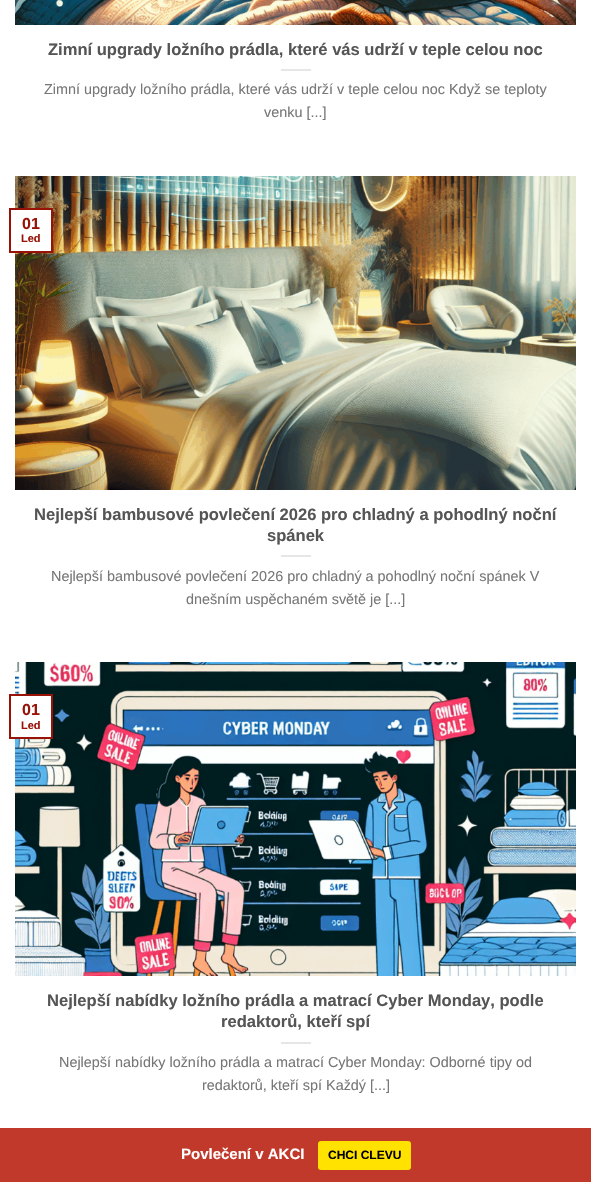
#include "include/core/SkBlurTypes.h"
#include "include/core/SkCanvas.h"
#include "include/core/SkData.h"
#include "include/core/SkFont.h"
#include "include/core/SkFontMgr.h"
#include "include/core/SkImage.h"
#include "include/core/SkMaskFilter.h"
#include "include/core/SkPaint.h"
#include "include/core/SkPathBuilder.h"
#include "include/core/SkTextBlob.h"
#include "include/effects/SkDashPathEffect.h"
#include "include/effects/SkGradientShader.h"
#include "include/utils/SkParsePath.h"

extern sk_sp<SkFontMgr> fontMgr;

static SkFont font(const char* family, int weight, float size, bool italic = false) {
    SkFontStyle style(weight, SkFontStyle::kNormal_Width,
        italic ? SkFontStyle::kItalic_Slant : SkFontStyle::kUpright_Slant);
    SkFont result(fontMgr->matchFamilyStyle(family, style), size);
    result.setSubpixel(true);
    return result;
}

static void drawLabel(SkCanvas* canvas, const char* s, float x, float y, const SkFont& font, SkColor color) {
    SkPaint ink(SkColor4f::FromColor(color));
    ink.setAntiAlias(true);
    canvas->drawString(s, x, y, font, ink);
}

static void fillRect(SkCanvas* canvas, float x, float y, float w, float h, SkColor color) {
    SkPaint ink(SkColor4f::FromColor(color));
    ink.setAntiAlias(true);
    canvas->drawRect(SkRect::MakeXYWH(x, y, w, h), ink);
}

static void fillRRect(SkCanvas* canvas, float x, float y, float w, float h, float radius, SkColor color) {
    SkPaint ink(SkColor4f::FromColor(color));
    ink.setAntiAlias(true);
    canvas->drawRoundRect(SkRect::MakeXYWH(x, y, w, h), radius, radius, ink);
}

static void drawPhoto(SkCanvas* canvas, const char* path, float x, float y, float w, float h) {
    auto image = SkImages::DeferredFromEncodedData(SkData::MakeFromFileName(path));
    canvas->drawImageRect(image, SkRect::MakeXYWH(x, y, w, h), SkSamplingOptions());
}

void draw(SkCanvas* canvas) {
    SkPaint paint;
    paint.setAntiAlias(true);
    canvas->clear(0xFFFFFFFF);
    drawPhoto(canvas, "assets/img1.png", 15, 0, 561, 25);
    SkFont font1 = font("Liberation Sans", 700, 16.55f);
    drawLabel(canvas, "Zimní upgrady ložního prádla, které vás udrží v teple celou noc", 48, 55, font1, 0xFF555555);
    fillRect(canvas, 281, 69, 30, 2, 0xFFE6E6E6);
    SkFont font2 = font("Liberation Sans", 400, 14.4f);
    drawLabel(canvas, "Zimní upgrady ložního prádla, které vás udrží v teple celou noc Když se teploty", 44, 94, font2, 0xFF777777);
    drawLabel(canvas, "venku [...]", 264, 117, font2, 0xFF777777);
    drawPhoto(canvas, "assets/img2.png", 15, 176, 561, 314);
    fillRect(canvas, 15, 210, 36, 41, 0xFFFFFFFF);
    paint.setStroke(true);
    paint.setStrokeWidth(2);
    paint.setColor(0xFF991207);
    canvas->drawRect(SkRect::MakeXYWH(10, 209, 42, 43), paint);
    SkFont font3 = font("Liberation Sans", 700, 16);
    drawLabel(canvas, "01", 22, 229, font3, 0xFF991207);
    SkFont font4 = font("Liberation Sans", 700, 11);
    drawLabel(canvas, "Led", 21, 242, font4, 0xFF991207);
    drawLabel(canvas, "Nejlepší bambusové povlečení 2026 pro chladný a pohodlný noční", 34, 520, font1, 0xFF555555);
    drawLabel(canvas, "spánek", 267, 541, font1, 0xFF555555);
    fillRect(canvas, 281, 555, 30, 2, 0xFFE6E6E6);
    drawLabel(canvas, "Nejlepší bambusové povlečení 2026 pro chladný a pohodlný noční spánek V", 51, 581, font2, 0xFF777777);
    drawLabel(canvas, "dnešním uspěchaném světě je [...]", 186, 604, font2, 0xFF777777);
    drawPhoto(canvas, "assets/img3.png", 15, 662, 561, 314);
    fillRect(canvas, 15, 696, 36, 41, 0xFFFFFFFF);
    canvas->drawRect(SkRect::MakeXYWH(10, 695, 42, 43), paint);
    drawLabel(canvas, "01", 22, 715, font3, 0xFF991207);
    drawLabel(canvas, "Led", 21, 729, font4, 0xFF991207);
    drawLabel(canvas, "Nejlepší nabídky ložního prádla a matrací Cyber Monday, podle", 47, 1006, font1, 0xFF555555);
    drawLabel(canvas, "redaktorů, kteří spí", 221, 1027, font1, 0xFF555555);
    fillRect(canvas, 281, 1042, 30, 2, 0xFFE6E6E6);
    drawLabel(canvas, "Nejlepší nabídky ložního prádla a matrací Cyber Monday: Odborné tipy od", 59, 1067, font2, 0xFF777777);
    drawLabel(canvas, "redaktorů, kteří spí Každý [...]", 202, 1090, font2, 0xFF777777);
    fillRect(canvas, 0, 1128, 591, 54, 0xFFC0392B);
    SkFont font5 = font("Liberation Sans", 700, 15);
    drawLabel(canvas, "Povlečení v AKCI", 181, 1159, font5, 0xFFFFFFFF);
    fillRRect(canvas, 318, 1141, 93, 29, 3, 0xFFFFE200);
    SkFont font6 = font("Liberation Sans", 700, 12);
    drawLabel(canvas, "CHCI CLEVU", 328, 1159, font6, 0xFF000000);
}
